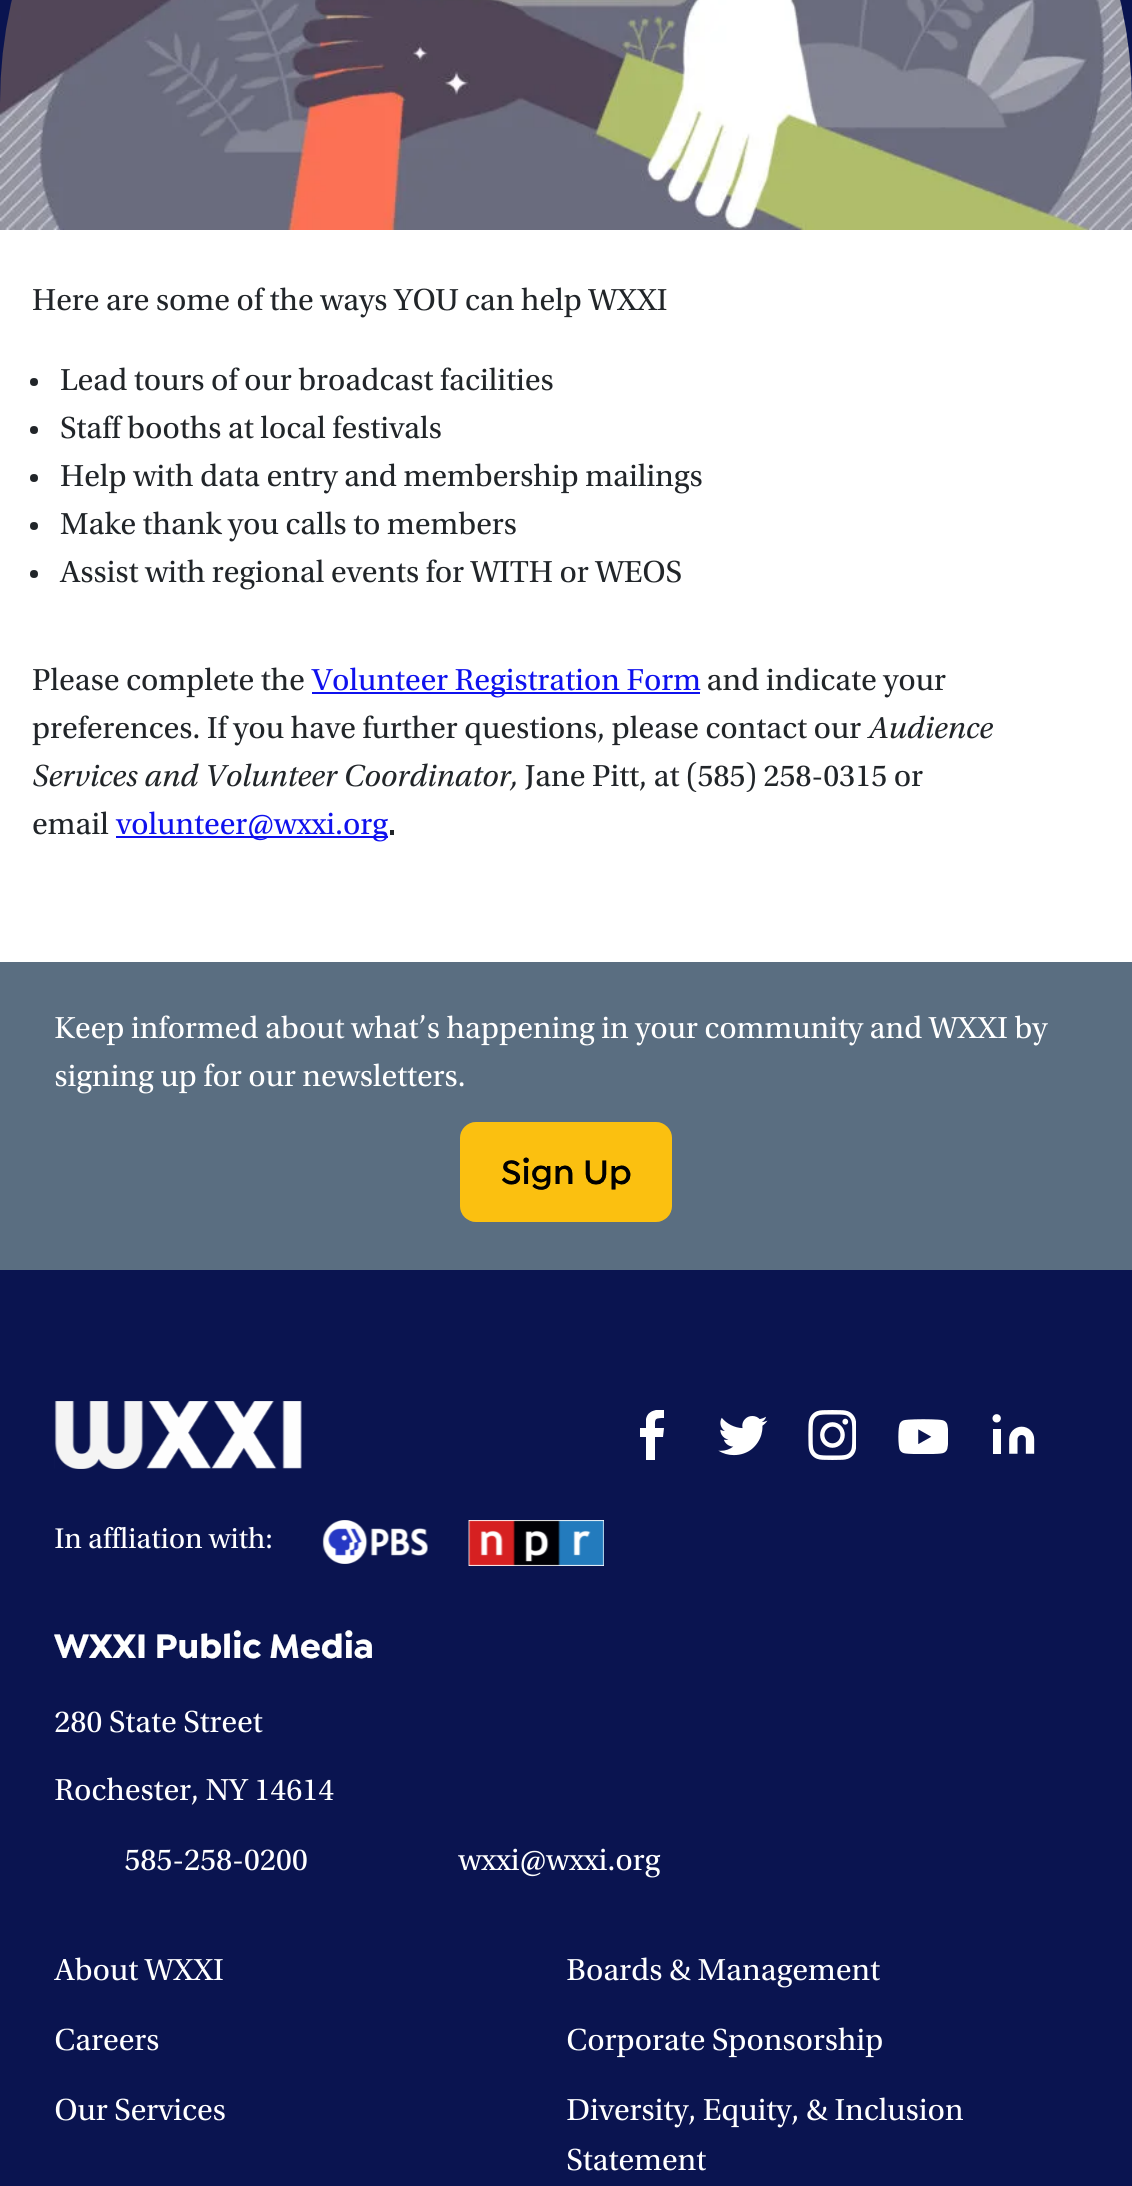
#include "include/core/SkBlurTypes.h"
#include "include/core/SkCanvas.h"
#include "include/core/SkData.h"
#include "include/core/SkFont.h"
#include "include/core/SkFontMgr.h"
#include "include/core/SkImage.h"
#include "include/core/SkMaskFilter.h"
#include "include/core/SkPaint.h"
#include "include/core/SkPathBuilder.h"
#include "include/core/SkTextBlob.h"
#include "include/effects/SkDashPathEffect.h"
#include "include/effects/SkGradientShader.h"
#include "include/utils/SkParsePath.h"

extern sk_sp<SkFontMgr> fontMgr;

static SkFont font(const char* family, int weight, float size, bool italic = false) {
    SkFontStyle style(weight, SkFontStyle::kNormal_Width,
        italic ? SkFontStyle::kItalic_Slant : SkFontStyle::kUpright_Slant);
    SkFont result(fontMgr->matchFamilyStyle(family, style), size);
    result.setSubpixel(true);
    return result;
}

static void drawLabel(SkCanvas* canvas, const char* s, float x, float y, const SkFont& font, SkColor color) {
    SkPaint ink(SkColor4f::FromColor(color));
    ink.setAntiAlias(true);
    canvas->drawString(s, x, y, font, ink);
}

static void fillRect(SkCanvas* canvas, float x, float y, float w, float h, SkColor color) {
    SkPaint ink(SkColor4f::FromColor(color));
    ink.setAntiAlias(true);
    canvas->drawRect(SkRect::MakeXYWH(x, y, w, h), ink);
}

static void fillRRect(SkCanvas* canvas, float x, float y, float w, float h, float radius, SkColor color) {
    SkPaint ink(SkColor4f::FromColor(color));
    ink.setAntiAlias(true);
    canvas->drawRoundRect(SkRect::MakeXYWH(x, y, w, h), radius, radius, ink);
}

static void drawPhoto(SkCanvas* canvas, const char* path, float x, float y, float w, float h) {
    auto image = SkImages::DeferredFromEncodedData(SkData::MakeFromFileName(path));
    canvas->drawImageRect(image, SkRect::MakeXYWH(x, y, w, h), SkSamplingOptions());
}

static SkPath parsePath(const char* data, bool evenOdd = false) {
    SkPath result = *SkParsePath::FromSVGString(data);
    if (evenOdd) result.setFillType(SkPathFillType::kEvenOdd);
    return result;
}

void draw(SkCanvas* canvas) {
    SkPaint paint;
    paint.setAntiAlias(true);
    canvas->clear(0xFFFFFFFF);
    fillRect(canvas, 0, 0, 1132, 103, 0xFF0A1450);
    drawPhoto(canvas, "assets/img1.png", 0, 0, 1132, 230);
    drawPhoto(canvas, "assets/img2.png", 33, 287, 634, 31);
    paint.setColor(0xFF212529);
    canvas->drawCircle(34, 382, 4, paint);
    drawPhoto(canvas, "assets/img3.png", 61, 367, 492, 24);
    canvas->drawCircle(34, 430, 4, paint);
    drawPhoto(canvas, "assets/img4.png", 61, 415, 380, 24);
    canvas->drawCircle(34, 478, 4, paint);
    drawPhoto(canvas, "assets/img5.png", 61, 463, 641, 31);
    canvas->drawCircle(34, 526, 4, paint);
    drawPhoto(canvas, "assets/img6.png", 60, 511, 456, 31);
    canvas->drawCircle(34, 574, 4, paint);
    drawPhoto(canvas, "assets/img7.png", 59, 559, 622, 31);
    drawPhoto(canvas, "assets/img8.png", 33, 667, 271, 31);
    fillRect(canvas, 312, 692, 388, 2, 0xFF0F11EE);
    drawPhoto(canvas, "assets/img9.png", 311, 667, 390, 31);
    drawPhoto(canvas, "assets/img10.png", 708, 667, 238, 31);
    drawPhoto(canvas, "assets/img11.png", 32, 715, 829, 31);
    drawPhoto(canvas, "assets/img12.png", 867, 715, 126, 24);
    drawPhoto(canvas, "assets/img13.png", 33, 763, 483, 28);
    drawPhoto(canvas, "assets/img14.png", 525, 762, 398, 30);
    drawPhoto(canvas, "assets/img15.png", 33, 811, 76, 24);
    fillRect(canvas, 116, 836, 272, 2, 0xFF0F11EE);
    drawPhoto(canvas, "assets/img16.png", 115, 811, 273, 31);
    fillRect(canvas, 390, 830, 4, 5, 0xFF212529);
    fillRect(canvas, 0, 962, 1132, 308, 0xFF5A6E81);
    drawPhoto(canvas, "assets/img17.png", 55, 1014, 993, 32);
    drawPhoto(canvas, "assets/img18.png", 55, 1063, 409, 31);
    fillRRect(canvas, 460, 1122, 212, 100, 16, 0xFFFBC010);
    SkFont font1 = font("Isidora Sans", 600, 36);
    drawLabel(canvas, "Sign Up", 501, 1184, font1, 0xFF000000);
    fillRect(canvas, 0, 1270, 1132, 916, 0xFF0A1450);
    drawPhoto(canvas, "assets/img19.png", 54, 1401, 248, 68);
    canvas->save();
    canvas->clipRect(SkRect::MakeXYWH(640, 1410, 26, 50));
    paint.setColor(0xFFFFFFFF);
    canvas->drawPath(parsePath("M664 1410V1418C654 1418 655 1419 655 1428H664L663 1437H655V1460H646V1437H638V1428H646V1419C648 1410 657 1409 664 1410Z", true), paint);
    canvas->restore();
    drawPhoto(canvas, "assets/img20.png", 718, 1416, 50, 40);
    drawPhoto(canvas, "assets/img21.png", 808, 1410, 48, 50);
    drawPhoto(canvas, "assets/img22.png", 898, 1419, 50, 35);
    drawPhoto(canvas, "assets/img23.png", 992, 1414, 43, 40);
    drawPhoto(canvas, "assets/img24.png", 55, 1526, 216, 23);
    drawPhoto(canvas, "assets/img25.png", 322, 1520, 106, 44);
    drawPhoto(canvas, "assets/img26.png", 468, 1520, 136, 46);
    SkFont font2 = font("Isidora Sans", 700, 36);
    drawLabel(canvas, "WXXI Public Media", 54, 1658, font2, 0xFFFFFFFF);
    drawPhoto(canvas, "assets/img27.png", 55, 1710, 208, 23);
    drawPhoto(canvas, "assets/img28.png", 55, 1777, 279, 28);
    drawPhoto(canvas, "assets/img29.png", 125, 1849, 182, 22);
    drawPhoto(canvas, "assets/img30.png", 458, 1848, 203, 30);
    drawPhoto(canvas, "assets/img31.png", 54, 1957, 169, 24);
    drawPhoto(canvas, "assets/img32.png", 567, 1957, 313, 31);
    drawPhoto(canvas, "assets/img33.png", 55, 2028, 104, 23);
    drawPhoto(canvas, "assets/img34.png", 567, 2027, 315, 31);
    drawPhoto(canvas, "assets/img35.png", 55, 2098, 170, 23);
    drawPhoto(canvas, "assets/img36.png", 567, 2097, 396, 31);
    drawPhoto(canvas, "assets/img37.png", 567, 2148, 139, 23);
}
